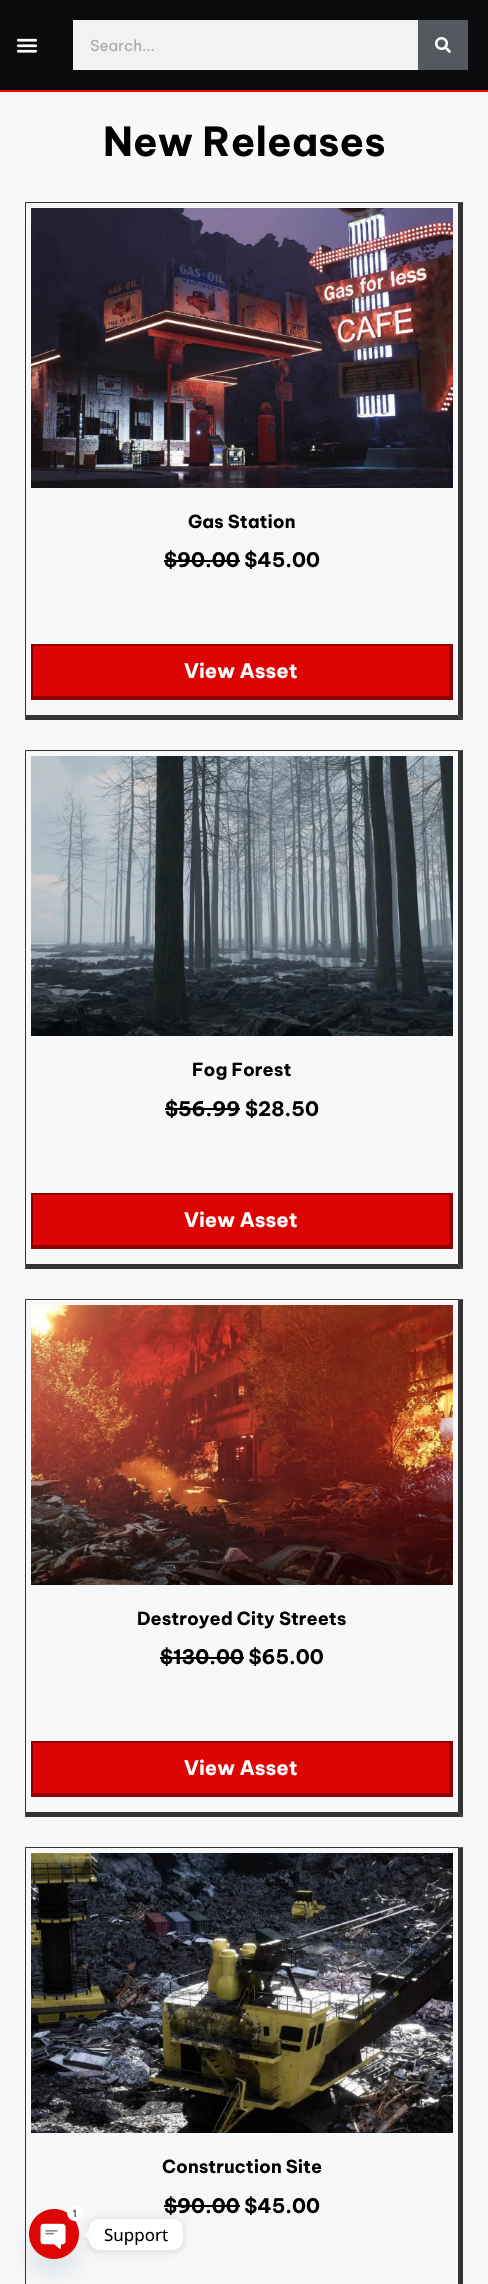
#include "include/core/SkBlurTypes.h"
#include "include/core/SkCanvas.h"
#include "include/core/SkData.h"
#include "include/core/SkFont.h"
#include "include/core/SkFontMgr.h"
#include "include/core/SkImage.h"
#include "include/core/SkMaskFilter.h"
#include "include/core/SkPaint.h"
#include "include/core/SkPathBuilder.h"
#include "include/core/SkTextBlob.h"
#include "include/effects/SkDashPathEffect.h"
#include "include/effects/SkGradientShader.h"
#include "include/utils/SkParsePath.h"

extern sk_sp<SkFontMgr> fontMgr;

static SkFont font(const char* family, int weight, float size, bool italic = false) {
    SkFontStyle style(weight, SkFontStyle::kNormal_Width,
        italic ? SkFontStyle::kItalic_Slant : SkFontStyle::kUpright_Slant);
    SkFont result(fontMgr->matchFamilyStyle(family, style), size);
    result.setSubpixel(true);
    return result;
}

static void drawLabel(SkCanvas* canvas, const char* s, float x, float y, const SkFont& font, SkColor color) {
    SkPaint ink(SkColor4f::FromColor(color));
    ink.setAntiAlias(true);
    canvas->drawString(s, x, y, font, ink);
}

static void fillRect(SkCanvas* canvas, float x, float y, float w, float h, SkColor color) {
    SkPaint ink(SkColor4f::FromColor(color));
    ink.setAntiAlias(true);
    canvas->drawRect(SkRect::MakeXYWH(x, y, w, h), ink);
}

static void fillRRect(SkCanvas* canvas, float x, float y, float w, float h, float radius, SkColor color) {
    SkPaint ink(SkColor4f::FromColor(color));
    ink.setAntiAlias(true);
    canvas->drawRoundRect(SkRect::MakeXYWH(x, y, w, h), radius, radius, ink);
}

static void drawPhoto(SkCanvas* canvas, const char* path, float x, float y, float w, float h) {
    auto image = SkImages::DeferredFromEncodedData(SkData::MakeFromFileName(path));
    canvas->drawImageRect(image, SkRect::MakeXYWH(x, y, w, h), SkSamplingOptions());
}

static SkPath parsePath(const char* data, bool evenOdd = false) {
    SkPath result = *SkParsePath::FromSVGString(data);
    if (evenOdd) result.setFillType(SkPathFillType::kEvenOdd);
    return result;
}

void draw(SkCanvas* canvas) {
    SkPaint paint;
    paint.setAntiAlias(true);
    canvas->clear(0xFFF7F8F9);
    fillRect(canvas, 0, 0, 488, 90, 0xFF0B0B0D);
    fillRect(canvas, 0, 90, 488, 2, 0xFFFF0000);
    drawPhoto(canvas, "assets/img1.png", 16, 38, 22, 15);
    fillRect(canvas, 73, 20, 345, 50, 0xFFF1F2F3);
    SkFont font1 = font("Be Vietnam Pro", 400, 15);
    drawLabel(canvas, "Search...", 90, 51, font1, 0xFFAAAAAA);
    fillRect(canvas, 418, 20, 50, 50, 0xFF54595F);
    drawPhoto(canvas, "assets/img2.png", 435, 37, 16, 16);
    SkFont font2 = font("Be Vietnam Pro", 700, 40);
    drawLabel(canvas, "New Releases", 103, 156, font2, 0xFF000000);
    paint.setColor(0xFF333233);
    canvas->drawPath(parsePath("M25 202H463L458 203H26Z"), paint);
    paint.setColor(0xCC020101);
    canvas->drawPath(parsePath("M463 202V720L458 715V203Z"), paint);
    canvas->drawPath(parsePath("M463 720H25L26 715H458Z"), paint);
    canvas->drawPath(parsePath("M25 720V202L26 203V715Z"), paint);
    drawPhoto(canvas, "assets/img3.png", 31, 208, 422, 280);
    SkFont font3 = font("Be Vietnam Pro", 700, 18);
    drawLabel(canvas, "Gas Station", 188, 528, font3, 0xFF000000);
    SkFont font4 = font("Be Vietnam Pro", 700, 20);
    drawLabel(canvas, "$90.00 $45.00", 164, 567, font4, 0xFF000000);
    fillRect(canvas, 164, 560, 76, 2, 0xFF000000);
    fillRect(canvas, 33, 646, 416, 50, 0xFFDD0504);
    fillRect(canvas, 31, 644, 422, 2, 0xFF900000);
    fillRect(canvas, 449, 644, 4, 56, 0xFF900000);
    fillRect(canvas, 31, 696, 422, 4, 0xFF900000);
    fillRect(canvas, 31, 644, 2, 56, 0xFF900000);
    drawLabel(canvas, "View Asset", 184, 678, font4, 0xFFFFFFFF);
    paint.setColor(0xFF333233);
    canvas->drawPath(parsePath("M25 750H463L458 751H26Z"), paint);
    paint.setColor(0xCC020101);
    canvas->drawPath(parsePath("M463 750V1269L458 1264V751Z"), paint);
    canvas->drawPath(parsePath("M463 1269H25L26 1264H458Z"), paint);
    canvas->drawPath(parsePath("M25 1269V750L26 751V1264Z"), paint);
    drawPhoto(canvas, "assets/img4.png", 31, 756, 422, 280);
    drawLabel(canvas, "Fog Forest", 192, 1076, font3, 0xFF000000);
    drawLabel(canvas, "$56.99 $28.50", 165, 1116, font4, 0xFF000000);
    fillRect(canvas, 165, 1108, 75, 2, 0xFF000000);
    fillRect(canvas, 33, 1195, 416, 50, 0xFFDD0504);
    fillRect(canvas, 31, 1193, 422, 2, 0xFF900000);
    fillRect(canvas, 449, 1193, 4, 56, 0xFF900000);
    fillRect(canvas, 31, 1245, 422, 4, 0xFF900000);
    fillRect(canvas, 31, 1193, 2, 56, 0xFF900000);
    drawLabel(canvas, "View Asset", 184, 1227, font4, 0xFFFFFFFF);
    paint.setColor(0xFF333233);
    canvas->drawPath(parsePath("M25 1299H463L458 1300H26Z"), paint);
    paint.setColor(0xCC020101);
    canvas->drawPath(parsePath("M463 1299V1817L458 1812V1300Z"), paint);
    canvas->drawPath(parsePath("M463 1817H25L26 1812H458Z"), paint);
    canvas->drawPath(parsePath("M25 1817V1299L26 1300V1812Z"), paint);
    drawPhoto(canvas, "assets/img5.png", 31, 1305, 422, 280);
    drawLabel(canvas, "Destroyed City Streets", 137, 1625, font3, 0xFF000000);
    drawLabel(canvas, "$130.00 $65.00", 160, 1664, font4, 0xFF000000);
    fillRect(canvas, 160, 1657, 84, 2, 0xFF000000);
    fillRect(canvas, 33, 1743, 416, 50, 0xFFDD0504);
    fillRect(canvas, 31, 1741, 422, 2, 0xFF900000);
    fillRect(canvas, 449, 1741, 4, 56, 0xFF900000);
    fillRect(canvas, 31, 1793, 422, 4, 0xFF900000);
    fillRect(canvas, 31, 1741, 2, 56, 0xFF900000);
    drawLabel(canvas, "View Asset", 184, 1775, font4, 0xFFFFFFFF);
    paint.setColor(0xFF333233);
    canvas->drawPath(parsePath("M25 1847H463L458 1848H26Z"), paint);
    paint.setColor(0xCC020101);
    canvas->drawPath(parsePath("M463 1847V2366L458 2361V1848Z"), paint);
    canvas->drawPath(parsePath("M25 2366V1847L26 1848V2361Z"), paint);
    drawPhoto(canvas, "assets/img6.png", 31, 1853, 422, 280);
    drawLabel(canvas, "Construction Site", 162, 2173, font3, 0xFF000000);
    drawLabel(canvas, "$90.00 $45.00", 164, 2213, font4, 0xFF000000);
    fillRect(canvas, 164, 2205, 76, 2, 0xFF000000);
    paint.setColor(0x26000000);
    paint.setMaskFilter(SkMaskFilter::MakeBlur(kNormal_SkBlurStyle, 4));
    canvas->drawRoundRect(SkRect::MakeXYWH(89, 2220, 94, 31), 10, 10, paint);
    paint.setMaskFilter(nullptr);
    fillRRect(canvas, 89, 2219, 94, 31, 10, 0xFFFFFFFF);
    paint.setColor(0xFFFFFFFF);
    canvas->drawPath(parsePath("M89 2229.5V2239.5L84 2234.5Z"), paint);
    paint.setColor(0x2949687E);
    paint.setMaskFilter(SkMaskFilter::MakeBlur(kNormal_SkBlurStyle, 12));
    canvas->drawRoundRect(SkRect::MakeXYWH(29, 2225, 50, 50), 25, 25, paint);
    paint.setMaskFilter(nullptr);
    drawPhoto(canvas, "assets/img7.png", 29, 2209, 50, 50);
    paint.setColor(0xFFFFFFFF);
    canvas->drawCircle(75, 2213, 8, paint);
    SkFont font5 = font("Noto Sans", 400, 10);
    drawLabel(canvas, "1", 72, 2217, font5, 0xFF202020);
    SkFont font6 = font("Noto Sans", 400, 17);
    drawLabel(canvas, "Support", 104, 2241, font6, 0xFF000000);
}
